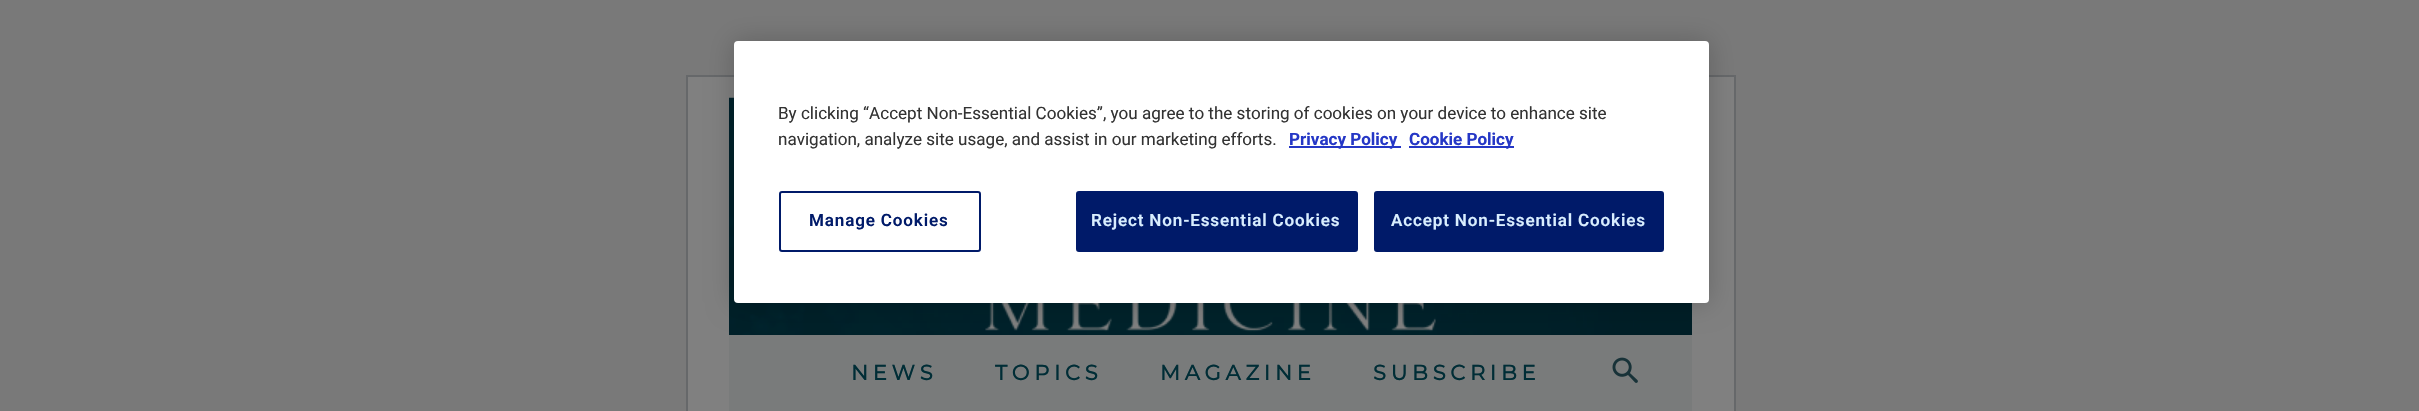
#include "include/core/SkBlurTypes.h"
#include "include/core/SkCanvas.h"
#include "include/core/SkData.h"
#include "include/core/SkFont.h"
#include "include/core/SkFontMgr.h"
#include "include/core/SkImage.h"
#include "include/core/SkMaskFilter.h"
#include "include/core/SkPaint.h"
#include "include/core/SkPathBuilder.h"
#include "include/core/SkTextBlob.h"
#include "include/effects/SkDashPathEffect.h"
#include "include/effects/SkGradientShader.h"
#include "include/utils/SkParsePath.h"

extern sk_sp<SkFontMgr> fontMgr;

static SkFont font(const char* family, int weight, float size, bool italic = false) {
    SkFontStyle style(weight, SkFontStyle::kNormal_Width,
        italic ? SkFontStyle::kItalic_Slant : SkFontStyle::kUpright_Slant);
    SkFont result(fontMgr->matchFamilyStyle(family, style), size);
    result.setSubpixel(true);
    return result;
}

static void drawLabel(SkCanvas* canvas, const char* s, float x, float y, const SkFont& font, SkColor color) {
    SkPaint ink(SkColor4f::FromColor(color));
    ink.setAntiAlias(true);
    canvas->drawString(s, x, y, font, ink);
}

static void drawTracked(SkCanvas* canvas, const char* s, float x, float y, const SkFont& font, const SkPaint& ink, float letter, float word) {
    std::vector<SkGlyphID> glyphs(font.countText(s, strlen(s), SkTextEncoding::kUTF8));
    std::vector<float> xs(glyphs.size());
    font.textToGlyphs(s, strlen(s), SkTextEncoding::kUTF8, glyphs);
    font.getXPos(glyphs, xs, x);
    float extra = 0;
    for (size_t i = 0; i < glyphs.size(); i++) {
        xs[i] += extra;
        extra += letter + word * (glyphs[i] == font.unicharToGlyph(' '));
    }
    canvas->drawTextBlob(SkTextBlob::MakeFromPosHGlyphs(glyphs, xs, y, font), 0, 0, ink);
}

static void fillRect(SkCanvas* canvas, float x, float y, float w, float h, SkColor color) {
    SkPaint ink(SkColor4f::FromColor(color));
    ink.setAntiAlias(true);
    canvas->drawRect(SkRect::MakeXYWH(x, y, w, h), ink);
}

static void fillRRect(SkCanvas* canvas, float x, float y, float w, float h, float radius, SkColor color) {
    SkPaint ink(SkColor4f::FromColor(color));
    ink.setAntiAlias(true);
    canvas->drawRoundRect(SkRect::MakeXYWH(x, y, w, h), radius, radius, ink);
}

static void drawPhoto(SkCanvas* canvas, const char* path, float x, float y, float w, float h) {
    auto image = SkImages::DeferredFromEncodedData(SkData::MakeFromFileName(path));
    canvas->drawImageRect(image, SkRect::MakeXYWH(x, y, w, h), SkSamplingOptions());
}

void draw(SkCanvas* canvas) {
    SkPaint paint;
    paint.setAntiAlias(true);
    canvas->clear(0xFF797979);
    paint.setColor(0xFF808080);
    canvas->drawRect(SkRect::MakeXYWH(687, 76, 1048, 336), paint);
    paint.setStroke(true);
    paint.setStrokeWidth(2);
    paint.setColor(0xFF66686A);
    canvas->drawRect(SkRect::MakeXYWH(687, 76, 1048, 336), paint);
    drawPhoto(canvas, "assets/img1.png", 729, 97, 963, 238);
    drawPhoto(canvas, "assets/img2.png", 985, 303, 451, 29);
    fillRect(canvas, 729, 335, 963, 76, 0xFF797B7B);
    paint.setStroke(false);
    paint.setColor(0x33000000);
    paint.setMaskFilter(SkMaskFilter::MakeBlur(kNormal_SkBlurStyle, 13.5f));
    canvas->drawRoundRect(SkRect::MakeXYWH(734, 41, 975, 262), 4, 4, paint);
    paint.setMaskFilter(nullptr);
    fillRRect(canvas, 734, 41, 975, 262, 4, 0xFFFFFFFF);
    SkFont font1 = font("Roboto", 400, 17.05f);
    drawLabel(canvas, "By clicking “Accept Non-Essential Cookies”, you agree to the storing of cookies on your device to enhance site", 778, 119, font1, 0xFF333333);
    drawLabel(canvas, "navigation, analyze site usage, and assist in our marketing efforts.", 778, 145, font1, 0xFF333333);
    fillRect(canvas, 1289, 146, 112, 2, 0xFF2537C6);
    SkFont font2 = font("Roboto", 700, 17.05f);
    drawLabel(canvas, "Privacy Policy", 1289, 145, font2, 0xFF2537C6);
    fillRect(canvas, 1409, 146, 105, 2, 0xFF2537C6);
    drawLabel(canvas, "Cookie Policy", 1409, 145, font2, 0xFF2537C6);
    paint.setStroke(true);
    paint.setColor(0xFF001A69);
    canvas->drawRoundRect(SkRect::MakeXYWH(780, 192, 200, 59), 2, 2, paint);
    SkFont font3 = font("Roboto", 600, 17.05f);
    paint.setStroke(false);
    drawTracked(canvas, "Manage Cookies", 809, 226, font3, paint, 0.85f, 0);
    canvas->drawRoundRect(SkRect::MakeXYWH(1077, 192, 280, 59), 2, 2, paint);
    paint.setStroke(true);
    canvas->drawRoundRect(SkRect::MakeXYWH(1077, 192, 280, 59), 2, 2, paint);
    paint.setStroke(false);
    paint.setColor(0xFFD9EEFF);
    drawTracked(canvas, "Reject Non-Essential Cookies", 1091, 226, font3, paint, 0.85f, 0);
    paint.setColor(0xFF001A69);
    canvas->drawRoundRect(SkRect::MakeXYWH(1375, 192, 288, 59), 2, 2, paint);
    paint.setStroke(true);
    canvas->drawRoundRect(SkRect::MakeXYWH(1375, 192, 288, 59), 2, 2, paint);
    paint.setStroke(false);
    paint.setColor(0xFFD9EEFF);
    drawTracked(canvas, "Accept Non-Essential Cookies", 1391, 226, font3, paint, 0.85f, 0);
    SkFont font4 = font("Montserrat", 700, 21);
    paint.setColor(0xFF002D36);
    drawTracked(canvas, "NEWS", 851, 380, font4, paint, 4.75f, 0);
    drawTracked(canvas, "TOPICS", 995, 380, font4, paint, 4.75f, 0);
    drawTracked(canvas, "MAGAZINE", 1160, 380, font4, paint, 4.75f, 0);
    drawTracked(canvas, "SUBSCRIBE", 1373, 380, font4, paint, 4.75f, 0);
    drawPhoto(canvas, "assets/img3.png", 1612, 357, 26, 26);
}
